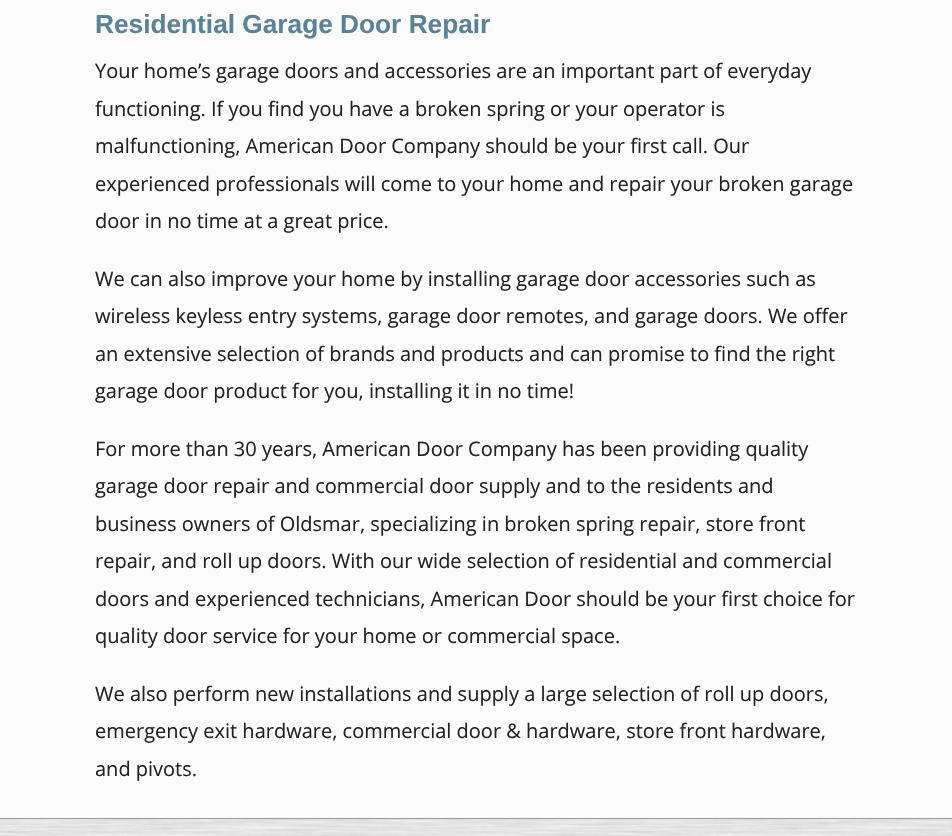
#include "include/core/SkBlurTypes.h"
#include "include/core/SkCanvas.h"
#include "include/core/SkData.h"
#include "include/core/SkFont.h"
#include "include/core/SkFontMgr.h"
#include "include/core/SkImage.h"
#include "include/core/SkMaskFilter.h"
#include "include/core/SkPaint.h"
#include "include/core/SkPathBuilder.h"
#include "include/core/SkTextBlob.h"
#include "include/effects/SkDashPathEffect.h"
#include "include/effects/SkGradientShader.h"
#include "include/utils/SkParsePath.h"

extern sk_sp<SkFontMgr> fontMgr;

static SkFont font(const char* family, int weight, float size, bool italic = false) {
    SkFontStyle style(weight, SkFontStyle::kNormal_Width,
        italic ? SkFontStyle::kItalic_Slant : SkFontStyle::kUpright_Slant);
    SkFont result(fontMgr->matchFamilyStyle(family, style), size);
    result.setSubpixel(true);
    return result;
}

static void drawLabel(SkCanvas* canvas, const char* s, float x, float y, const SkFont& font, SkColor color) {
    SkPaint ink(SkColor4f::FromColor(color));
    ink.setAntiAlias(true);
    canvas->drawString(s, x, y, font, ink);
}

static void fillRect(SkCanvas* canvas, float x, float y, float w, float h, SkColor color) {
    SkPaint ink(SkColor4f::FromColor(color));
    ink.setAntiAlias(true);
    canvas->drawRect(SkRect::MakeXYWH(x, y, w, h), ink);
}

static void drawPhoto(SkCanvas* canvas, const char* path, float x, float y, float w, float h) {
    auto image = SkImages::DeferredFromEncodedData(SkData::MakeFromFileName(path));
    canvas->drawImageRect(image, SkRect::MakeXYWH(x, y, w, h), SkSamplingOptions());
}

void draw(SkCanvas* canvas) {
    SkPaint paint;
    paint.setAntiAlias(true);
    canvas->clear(0xFFFFFFFF);
    fillRect(canvas, 0, 0, 952, 818, 0xFFFBFBFB);
    SkFont font1 = font("Liberation Sans", 700, 26.25f);
    drawLabel(canvas, "Residential Garage Door Repair", 95, 33, font1, 0xFF5A8297);
    SkFont font2 = font("Open Sans", 400, 20);
    drawLabel(canvas, "Your home’s garage doors and accessories are an important part of everyday", 95, 78, font2, 0xFF222222);
    drawLabel(canvas, "functioning. If you find you have a broken spring or your operator is", 95, 116, font2, 0xFF222222);
    drawLabel(canvas, "malfunctioning, American Door Company should be your first call. Our", 95, 153, font2, 0xFF222222);
    drawLabel(canvas, "experienced professionals will come to your home and repair your broken garage", 95, 191, font2, 0xFF222222);
    drawLabel(canvas, "door in no time at a great price.", 95, 228, font2, 0xFF222222);
    drawLabel(canvas, "We can also improve your home by installing garage door accessories such as", 95, 286, font2, 0xFF222222);
    drawLabel(canvas, "wireless keyless entry systems, garage door remotes, and garage doors. We offer", 95, 323, font2, 0xFF222222);
    drawLabel(canvas, "an extensive selection of brands and products and can promise to find the right", 95, 361, font2, 0xFF222222);
    drawLabel(canvas, "garage door product for you, installing it in no time!", 95, 398, font2, 0xFF222222);
    drawLabel(canvas, "For more than 30 years, American Door Company has been providing quality", 95, 456, font2, 0xFF222222);
    drawLabel(canvas, "garage door repair and commercial door supply and to the residents and", 95, 493, font2, 0xFF222222);
    drawLabel(canvas, "business owners of Oldsmar, specializing in broken spring repair, store front", 95, 531, font2, 0xFF222222);
    drawLabel(canvas, "repair, and roll up doors. With our wide selection of residential and commercial", 95, 568, font2, 0xFF222222);
    drawLabel(canvas, "doors and experienced technicians, American Door should be your first choice for", 95, 606, font2, 0xFF222222);
    drawLabel(canvas, "quality door service for your home or commercial space.", 95, 643, font2, 0xFF222222);
    drawLabel(canvas, "We also perform new installations and supply a large selection of roll up doors,", 95, 701, font2, 0xFF222222);
    drawLabel(canvas, "emergency exit hardware, commercial door & hardware, store front hardware,", 95, 738, font2, 0xFF222222);
    drawLabel(canvas, "and pivots.", 95, 776, font2, 0xFF222222);
    drawPhoto(canvas, "assets/img1.png", 0, 819, 952, 17);
    fillRect(canvas, 0, 818, 952, 1, 0xFF999999);
}
